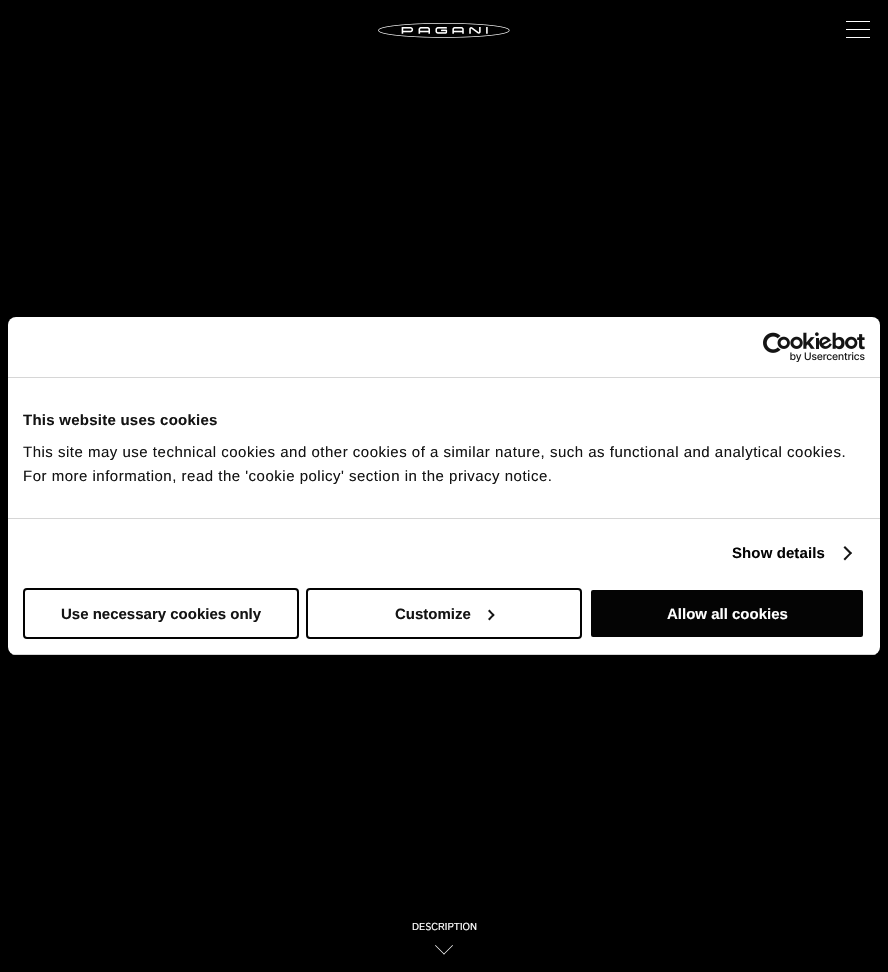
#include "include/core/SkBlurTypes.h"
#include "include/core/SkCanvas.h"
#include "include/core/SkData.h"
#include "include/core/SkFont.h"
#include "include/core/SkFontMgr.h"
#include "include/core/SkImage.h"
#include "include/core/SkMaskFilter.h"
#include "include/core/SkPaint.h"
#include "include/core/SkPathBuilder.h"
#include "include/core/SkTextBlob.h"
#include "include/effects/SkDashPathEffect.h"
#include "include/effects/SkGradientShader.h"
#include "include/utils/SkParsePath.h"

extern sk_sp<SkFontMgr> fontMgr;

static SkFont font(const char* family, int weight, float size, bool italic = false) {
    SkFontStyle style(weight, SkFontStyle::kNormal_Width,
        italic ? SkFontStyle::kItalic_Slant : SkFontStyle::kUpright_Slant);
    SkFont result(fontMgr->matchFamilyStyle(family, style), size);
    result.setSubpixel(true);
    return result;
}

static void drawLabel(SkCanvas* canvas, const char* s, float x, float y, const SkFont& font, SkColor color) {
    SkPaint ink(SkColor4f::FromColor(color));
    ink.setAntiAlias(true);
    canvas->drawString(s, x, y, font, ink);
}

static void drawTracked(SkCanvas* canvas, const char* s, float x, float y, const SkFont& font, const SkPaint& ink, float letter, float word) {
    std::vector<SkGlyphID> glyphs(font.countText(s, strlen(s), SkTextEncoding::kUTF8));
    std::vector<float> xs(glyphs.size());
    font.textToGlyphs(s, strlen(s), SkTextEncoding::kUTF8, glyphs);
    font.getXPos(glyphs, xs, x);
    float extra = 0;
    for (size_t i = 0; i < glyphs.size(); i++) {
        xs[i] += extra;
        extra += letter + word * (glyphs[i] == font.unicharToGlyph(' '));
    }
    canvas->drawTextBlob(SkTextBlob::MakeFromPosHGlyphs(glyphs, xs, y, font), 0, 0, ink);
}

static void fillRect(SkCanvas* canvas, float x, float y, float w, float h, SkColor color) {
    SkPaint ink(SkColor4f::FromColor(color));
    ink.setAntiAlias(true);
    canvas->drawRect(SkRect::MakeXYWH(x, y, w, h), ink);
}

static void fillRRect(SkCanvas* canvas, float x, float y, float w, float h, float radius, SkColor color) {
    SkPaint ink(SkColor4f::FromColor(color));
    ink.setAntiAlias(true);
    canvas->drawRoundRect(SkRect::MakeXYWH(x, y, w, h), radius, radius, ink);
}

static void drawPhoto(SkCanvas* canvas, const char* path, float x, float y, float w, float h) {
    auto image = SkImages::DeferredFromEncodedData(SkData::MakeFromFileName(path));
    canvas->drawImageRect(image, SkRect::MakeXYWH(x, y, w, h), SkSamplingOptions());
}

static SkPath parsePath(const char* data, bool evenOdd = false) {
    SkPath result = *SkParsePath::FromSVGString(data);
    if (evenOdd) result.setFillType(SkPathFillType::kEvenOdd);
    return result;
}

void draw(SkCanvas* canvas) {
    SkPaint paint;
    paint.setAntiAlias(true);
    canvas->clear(0xFF000000);
    drawPhoto(canvas, "assets/img1.png", 378, 23, 132, 15);
    fillRect(canvas, 846, 21, 24, 1, 0xFFFFFFFF);
    fillRect(canvas, 846, 29, 24, 1, 0xFFFFFFFF);
    fillRect(canvas, 846, 37, 24, 1, 0xFFFFFFFF);
    fillRRect(canvas, 8, 317, 872, 338, 8, 0xFFFFFFFF);
    fillRect(canvas, 8, 377, 872, 1, 0xFFD6D6D6);
    drawPhoto(canvas, "assets/img2.png", 763, 332, 102, 30);
    fillRect(canvas, 8, 518, 872, 1, 0xFFD6D6D6);
    SkFont font1 = font("Liberation Sans", 700, 15);
    paint.setColor(0xFF141414);
    drawTracked(canvas, "This website uses cookies", 23, 425, font1, paint, 0.25f, 0);
    SkFont font2 = font("Liberation Sans", 400, 15);
    drawTracked(canvas, "This site may use technical cookies and other cookies of a similar nature, such as functional and analytical cookies.", 23, 457, font2, paint, 0.5f, 0);
    drawTracked(canvas, "For more information, read the 'cookie policy' section in the privacy notice.", 23, 481, font2, paint, 0.5f, 0);
    paint.setColor(0xFF050505);
    drawTracked(canvas, "Show details", 732, 558, font1, paint, 0.1f, 0);
    paint.setColor(0xFF141414);
    canvas->drawPath(parsePath("M845 546L852 553L850.5 554.5L843.5 547.5Z"), paint);
    canvas->drawPath(parsePath("M850.5 552L852 553L845 560.5L843.5 559Z"), paint);
    canvas->save();
    canvas->clipPath(parsePath("M16 317H872C876.5 317 880 320.5 880 325V647C880 651.5 876.5 655 872 655H16C11.5 655 8 651.5 8 647V325C8 320.5 11.5 317 16 317Z"), true);
    fillRect(canvas, 8, 654, 872, 1, 0xFFD6D6D6);
    canvas->restore();
    paint.setStroke(true);
    paint.setStrokeWidth(2);
    paint.setColor(0xFF020202);
    canvas->drawRoundRect(SkRect::MakeXYWH(24, 589, 274, 49), 3, 3, paint);
    drawLabel(canvas, "Use necessary cookies only", 61, 619, font1, 0xFF141414);
    paint.setColor(0xFF030303);
    canvas->drawRoundRect(SkRect::MakeXYWH(307, 589, 274, 49), 3, 3, paint);
    drawLabel(canvas, "Customize", 395, 619, font1, 0xFF141414);
    paint.setStroke(false);
    paint.setColor(0xFF141414);
    canvas->drawPath(parsePath("M489.5 609.5L494.5 615L493.5 616.5L488 611Z"), paint);
    canvas->drawPath(parsePath("M493.5 613.5L494.5 615L489.5 620.5L488 619Z"), paint);
    paint.setColor(0xFF040404);
    canvas->drawRoundRect(SkRect::MakeXYWH(590, 589, 274, 49), 3, 3, paint);
    paint.setStroke(true);
    paint.setColor(0xFFFFFFFF);
    canvas->drawRoundRect(SkRect::MakeXYWH(590, 589, 274, 49), 3, 3, paint);
    drawLabel(canvas, "Allow all cookies", 667, 619, font1, 0xFFFFFFFF);
    SkFont font3 = font("Istok Web", 400, 10);
    drawLabel(canvas, "DESCRIPTION", 412, 930, font3, 0xFFFFFFFF);
    paint.setStroke(false);
    canvas->drawPath(parsePath("M452.5 945L453 945.5L444 954.5L443.5 954Z"), paint);
    canvas->drawPath(parsePath("M435.5 945L444.5 954L444 954.5L435 945.5Z"), paint);
}
